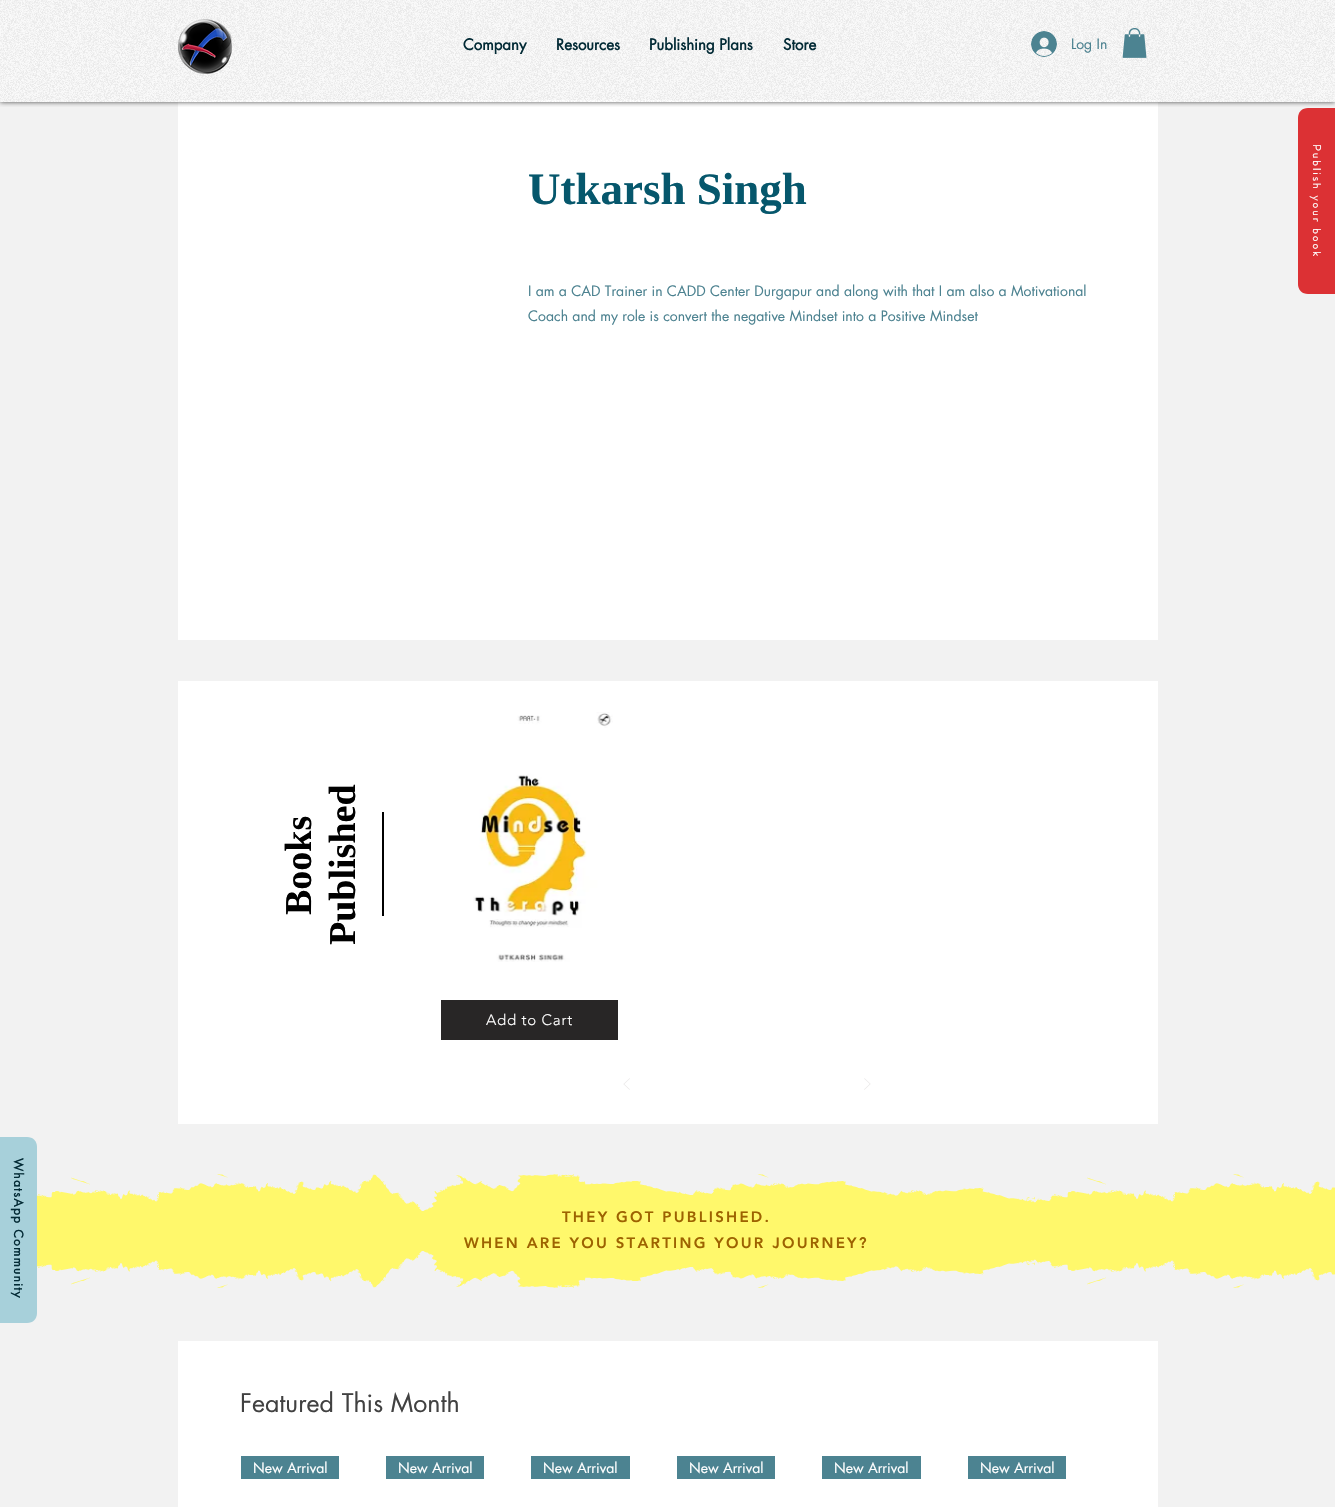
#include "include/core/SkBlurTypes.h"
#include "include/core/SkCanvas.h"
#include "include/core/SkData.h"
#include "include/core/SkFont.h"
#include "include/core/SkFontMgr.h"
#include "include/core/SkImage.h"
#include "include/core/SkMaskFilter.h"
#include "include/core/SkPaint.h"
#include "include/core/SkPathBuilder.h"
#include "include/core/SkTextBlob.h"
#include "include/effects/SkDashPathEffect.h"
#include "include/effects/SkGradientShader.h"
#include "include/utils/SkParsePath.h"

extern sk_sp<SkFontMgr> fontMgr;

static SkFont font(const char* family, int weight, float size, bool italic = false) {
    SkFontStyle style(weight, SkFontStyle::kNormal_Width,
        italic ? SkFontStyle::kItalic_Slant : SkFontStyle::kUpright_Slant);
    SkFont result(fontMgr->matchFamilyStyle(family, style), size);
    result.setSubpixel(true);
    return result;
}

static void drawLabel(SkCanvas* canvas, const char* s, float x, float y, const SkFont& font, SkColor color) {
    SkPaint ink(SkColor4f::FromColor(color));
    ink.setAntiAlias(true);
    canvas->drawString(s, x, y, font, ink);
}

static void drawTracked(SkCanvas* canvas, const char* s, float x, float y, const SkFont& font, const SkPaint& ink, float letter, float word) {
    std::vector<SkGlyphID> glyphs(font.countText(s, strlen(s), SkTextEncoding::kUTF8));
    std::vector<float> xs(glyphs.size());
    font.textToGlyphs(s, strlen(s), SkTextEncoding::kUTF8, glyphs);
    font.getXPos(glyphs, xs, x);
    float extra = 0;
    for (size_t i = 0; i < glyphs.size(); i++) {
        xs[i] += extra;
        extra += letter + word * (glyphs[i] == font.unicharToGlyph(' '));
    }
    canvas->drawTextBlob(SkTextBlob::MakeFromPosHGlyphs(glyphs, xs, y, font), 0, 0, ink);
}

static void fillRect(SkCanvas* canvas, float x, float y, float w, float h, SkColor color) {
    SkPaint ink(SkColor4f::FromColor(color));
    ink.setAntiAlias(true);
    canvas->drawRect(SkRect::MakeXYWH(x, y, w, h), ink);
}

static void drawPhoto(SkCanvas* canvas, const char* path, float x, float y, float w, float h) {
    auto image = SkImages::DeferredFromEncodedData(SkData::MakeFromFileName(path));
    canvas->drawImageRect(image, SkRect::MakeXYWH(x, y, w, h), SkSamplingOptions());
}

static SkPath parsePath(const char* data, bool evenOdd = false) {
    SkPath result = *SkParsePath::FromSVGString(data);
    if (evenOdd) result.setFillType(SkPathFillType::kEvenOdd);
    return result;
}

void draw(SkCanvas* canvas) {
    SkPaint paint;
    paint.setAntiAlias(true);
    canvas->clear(0xFFF2F2F2);
    fillRect(canvas, 0, 0, 1335, 102, 0xFFFAFAFA);
    fillRect(canvas, 178, 100, 980, 540, 0xFFFFFFFF);
    canvas->save();
    canvas->clipRect(SkRect::MakeXYWH(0, 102, 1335, 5));
    paint.setColor(0xB3000000);
    paint.setMaskFilter(SkMaskFilter::MakeBlur(kNormal_SkBlurStyle, 2.5f));
    canvas->drawRect(SkRect::MakeXYWH(0, 0, 1335, 102), paint);
    paint.setMaskFilter(nullptr);
    canvas->restore();
    drawPhoto(canvas, "assets/img1.png", 0, 0, 1335, 102);
    drawPhoto(canvas, "assets/img2.png", 178, 19, 55, 55);
    SkFont font1 = font("futura", 700, 15);
    drawLabel(canvas, "Company", 463, 50, font1, 0xFF032B36);
    drawLabel(canvas, "Resources", 556, 50, font1, 0xFF032B36);
    drawLabel(canvas, "Publishing Plans", 649, 50, font1, 0xFF032B36);
    drawLabel(canvas, "Store", 783, 50, font1, 0xFF032B36);
    drawPhoto(canvas, "assets/img3.png", 1031, 31, 26, 26);
    SkFont font2 = font("futura", 400, 14);
    drawLabel(canvas, "Log In", 1071, 49, font2, 0xFF4C8290);
    drawPhoto(canvas, "assets/img4.png", 1122, 28, 25, 30);
    paint.setColor(0xFFA7D0DA);
    canvas->drawPath(parsePath("M37 1147V1313C37 1319 33 1323 27 1323H0V1137H27C33 1137 37 1141 37 1147Z"), paint);
    SkFont font3 = font("futura", 700, 12);
    paint.setColor(0xFF032B36);
    canvas->save();
    canvas->rotate(90, 14, 1158);
    drawTracked(canvas, "WhatsApp Community", 14, 1158, font3, paint, 1.25f, 0);
    canvas->restore();
    SkFont font4 = font("Liberation Serif", 700, 45);
    drawLabel(canvas, "Utkarsh Singh", 528, 204, font4, 0xFF06576C);
    drawLabel(canvas, "I am a CAD Trainer in CADD Center Durgapur and along with that I am also a Motivational", 528, 296, font2, 0xFF4C8290);
    drawLabel(canvas, "Coach and my role is convert the negative Mindset into a Positive Mindset", 528, 321, font2, 0xFF4C8290);
    fillRect(canvas, 178, 681, 980, 443, 0xFFFFFFFF);
    SkFont font5 = font("Liberation Serif", 700, 38);
    canvas->save();
    canvas->rotate(-90, 311, 915);
    drawLabel(canvas, "Books", 311, 915, font5, 0xFF000000);
    canvas->restore();
    canvas->save();
    canvas->rotate(-90, 355, 945);
    drawLabel(canvas, "Published", 355, 945, font5, 0xFF000000);
    canvas->restore();
    fillRect(canvas, 382, 812, 2, 104, 0xFF000000);
    drawPhoto(canvas, "assets/img5.png", 473, 712, 140, 250);
    fillRect(canvas, 441, 1000, 177, 40, 0xFF282626);
    SkFont font6 = font("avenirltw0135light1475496", 300, 15);
    paint.setColor(0xFFFFFFFF);
    drawTracked(canvas, "Add to Cart", 486, 1025, font6, paint, 0.75f, 0);
    drawPhoto(canvas, "assets/img6.png", 623, 1078, 7, 12);
    drawPhoto(canvas, "assets/img7.png", 864, 1078, 7, 12);
    fillRect(canvas, 37, 1174, 1298, 114, 0xFFFFF86B);
    drawPhoto(canvas, "assets/img8.png", 37, 1161, 1298, 50);
    SkFont font7 = font("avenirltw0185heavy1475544", 900, 15);
    paint.setColor(0xFF9D6200);
    drawTracked(canvas, "THEY GOT PUBLISHED.", 562, 1222, font7, paint, 2.25f, 0);
    drawTracked(canvas, "WHEN ARE YOU STARTING YOUR JOURNEY?", 464, 1248, font7, paint, 2.25f, 0);
    drawPhoto(canvas, "assets/img9.png", 37, 1251, 1298, 50);
    fillRect(canvas, 178, 1341, 980, 166, 0xFFFFFFFF);
    SkFont font8 = font("futura", 400, 25);
    drawLabel(canvas, "Featured This Month", 240, 1412, font8, 0xFF414141);
    fillRect(canvas, 241, 1456, 98, 23, 0xFF4C8391);
    drawLabel(canvas, "New Arrival", 253, 1473, font2, 0xFFFFFFFF);
    fillRect(canvas, 386, 1456, 98, 23, 0xFF4C8391);
    drawLabel(canvas, "New Arrival", 398, 1473, font2, 0xFFFFFFFF);
    fillRect(canvas, 531, 1456, 99, 23, 0xFF4C8391);
    drawLabel(canvas, "New Arrival", 543, 1473, font2, 0xFFFFFFFF);
    fillRect(canvas, 677, 1456, 98, 23, 0xFF4C8391);
    drawLabel(canvas, "New Arrival", 689, 1473, font2, 0xFFFFFFFF);
    fillRect(canvas, 822, 1456, 99, 23, 0xFF4C8391);
    drawLabel(canvas, "New Arrival", 834, 1473, font2, 0xFFFFFFFF);
    fillRect(canvas, 968, 1456, 98, 23, 0xFF4C8391);
    drawLabel(canvas, "New Arrival", 980, 1473, font2, 0xFFFFFFFF);
    paint.setColor(0xFFDC3134);
    canvas->drawPath(parsePath("M1335 108V294H1308C1302 294 1298 290 1298 284V118C1298 112 1302 108 1308 108Z"), paint);
    SkFont font9 = font("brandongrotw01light", 700, 11);
    paint.setColor(0xFFFFFFFF);
    canvas->save();
    canvas->rotate(90, 1313, 144);
    drawTracked(canvas, "Publish your book", 1313, 144, font9, paint, 2.25f, 0);
    canvas->restore();
}
